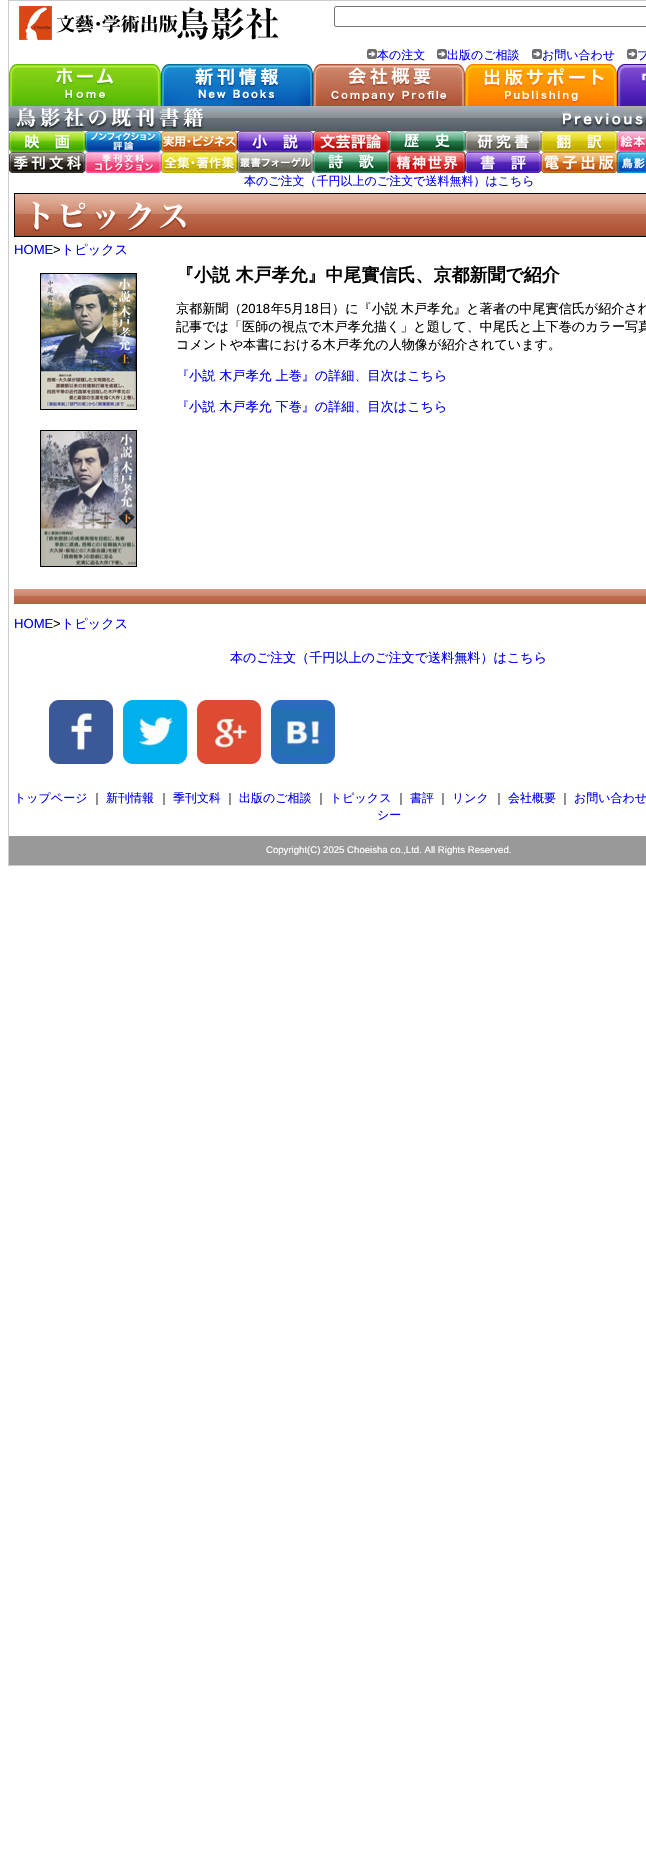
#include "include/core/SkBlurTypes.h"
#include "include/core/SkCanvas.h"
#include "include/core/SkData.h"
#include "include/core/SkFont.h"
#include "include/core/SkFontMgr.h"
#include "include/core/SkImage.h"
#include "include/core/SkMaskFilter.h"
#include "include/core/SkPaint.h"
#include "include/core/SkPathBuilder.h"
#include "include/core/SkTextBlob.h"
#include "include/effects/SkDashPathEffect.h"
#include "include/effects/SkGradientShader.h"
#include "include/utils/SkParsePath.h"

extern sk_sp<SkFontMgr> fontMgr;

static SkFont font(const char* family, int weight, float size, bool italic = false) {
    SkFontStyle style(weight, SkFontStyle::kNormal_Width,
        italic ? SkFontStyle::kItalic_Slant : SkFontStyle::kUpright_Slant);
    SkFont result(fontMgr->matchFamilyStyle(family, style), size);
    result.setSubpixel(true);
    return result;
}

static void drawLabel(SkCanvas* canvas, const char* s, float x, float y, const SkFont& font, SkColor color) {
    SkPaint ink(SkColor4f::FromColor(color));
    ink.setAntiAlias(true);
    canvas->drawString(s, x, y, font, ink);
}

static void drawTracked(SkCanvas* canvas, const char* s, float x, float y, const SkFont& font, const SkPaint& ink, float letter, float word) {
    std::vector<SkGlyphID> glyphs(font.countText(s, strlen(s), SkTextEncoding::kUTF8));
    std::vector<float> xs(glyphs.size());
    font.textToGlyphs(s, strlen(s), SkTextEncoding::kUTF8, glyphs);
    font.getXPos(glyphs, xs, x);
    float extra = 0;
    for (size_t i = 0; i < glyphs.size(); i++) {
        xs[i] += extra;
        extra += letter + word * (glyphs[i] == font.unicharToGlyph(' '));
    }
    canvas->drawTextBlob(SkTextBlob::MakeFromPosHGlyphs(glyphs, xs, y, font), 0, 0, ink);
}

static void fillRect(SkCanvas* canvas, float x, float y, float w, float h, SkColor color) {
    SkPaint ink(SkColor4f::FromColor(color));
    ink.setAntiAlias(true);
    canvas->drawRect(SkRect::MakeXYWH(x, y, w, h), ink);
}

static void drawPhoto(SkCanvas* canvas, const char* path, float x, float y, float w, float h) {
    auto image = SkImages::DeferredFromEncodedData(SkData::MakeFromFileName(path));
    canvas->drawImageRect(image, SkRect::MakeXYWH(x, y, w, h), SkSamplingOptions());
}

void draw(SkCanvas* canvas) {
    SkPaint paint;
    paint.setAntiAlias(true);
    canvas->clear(0xFFFFFFFF);
    paint.setStroke(true);
    paint.setStrokeWidth(1);
    paint.setColor(0xFFCCCCCC);
    canvas->drawRect(SkRect::MakeXYWH(8.5f, 0.5f, 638, 865), paint);
    drawPhoto(canvas, "assets/img1.png", 19, 6, 260, 34);
    paint.setColor(0xFF767676);
    canvas->drawRoundRect(SkRect::MakeXYWH(334.5f, 6.5f, 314, 20), 1.5f, 1.5f, paint);
    drawPhoto(canvas, "assets/img2.png", 367, 49, 10, 10);
    SkFont font1 = font("WenQuanYi Zen Hei", 500, 12);
    drawLabel(canvas, "本の注文", 377, 59, font1, 0xFF0000EE);
    drawPhoto(canvas, "assets/img2.png", 437, 49, 10, 10);
    drawLabel(canvas, "出版のご相談", 447, 59, font1, 0xFF0000EE);
    drawPhoto(canvas, "assets/img2.png", 532, 49, 10, 10);
    drawLabel(canvas, "お問い合わせ", 542, 59, font1, 0xFF0000EE);
    drawPhoto(canvas, "assets/img2.png", 627, 49, 10, 10);
    drawLabel(canvas, "プ", 637, 59, font1, 0xFF0000EE);
    drawPhoto(canvas, "assets/img3.png", 9, 64, 152, 42);
    drawPhoto(canvas, "assets/img4.png", 161, 64, 152, 42);
    drawPhoto(canvas, "assets/img5.png", 313, 64, 152, 42);
    drawPhoto(canvas, "assets/img6.png", 465, 64, 152, 42);
    drawPhoto(canvas, "assets/img7.png", 617, 64, 29, 42);
    drawPhoto(canvas, "assets/img8.png", 9, 106, 637, 25);
    drawPhoto(canvas, "assets/img9.png", 9, 131, 76, 21);
    drawPhoto(canvas, "assets/img10.png", 85, 131, 76, 21);
    drawPhoto(canvas, "assets/img11.png", 161, 131, 76, 21);
    drawPhoto(canvas, "assets/img12.png", 237, 131, 76, 21);
    drawPhoto(canvas, "assets/img13.png", 313, 131, 76, 21);
    drawPhoto(canvas, "assets/img14.png", 389, 131, 76, 21);
    drawPhoto(canvas, "assets/img15.png", 465, 131, 76, 21);
    drawPhoto(canvas, "assets/img16.png", 541, 131, 76, 21);
    drawPhoto(canvas, "assets/img17.png", 617, 131, 29, 21);
    drawPhoto(canvas, "assets/img18.png", 9, 152, 76, 21);
    drawPhoto(canvas, "assets/img19.png", 85, 152, 76, 21);
    drawPhoto(canvas, "assets/img20.png", 161, 152, 76, 21);
    drawPhoto(canvas, "assets/img21.png", 237, 152, 76, 21);
    drawPhoto(canvas, "assets/img22.png", 313, 152, 76, 21);
    drawPhoto(canvas, "assets/img23.png", 389, 152, 76, 21);
    drawPhoto(canvas, "assets/img24.png", 465, 152, 76, 21);
    drawPhoto(canvas, "assets/img25.png", 541, 152, 76, 21);
    drawPhoto(canvas, "assets/img26.png", 617, 152, 29, 21);
    drawLabel(canvas, "本のご注文（千円以上のご注文で送料無料）はこちら", 244, 185, font1, 0xFF0000EE);
    paint.setColor(0xFF000000);
    canvas->drawRect(SkRect::MakeXYWH(14.5f, 193.5f, 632, 43), paint);
    drawPhoto(canvas, "assets/img27.png", 15, 194, 631, 42);
    SkFont font2 = font("Liberation Sans", 400, 13.1f);
    drawLabel(canvas, "HOME", 14, 254, font2, 0xFF0000EE);
    drawLabel(canvas, ">", 53, 254, font2, 0xFF000000);
    SkFont font3 = font("WenQuanYi Zen Hei", 500, 13.1f);
    drawLabel(canvas, "トピックス", 61, 254, font3, 0xFF0000EE);
    canvas->drawRect(SkRect::MakeXYWH(40.5f, 273.5f, 96, 136), paint);
    drawPhoto(canvas, "assets/img28.png", 41, 274, 95, 135);
    canvas->drawRect(SkRect::MakeXYWH(40.5f, 430.5f, 96, 136), paint);
    drawPhoto(canvas, "assets/img29.png", 41, 431, 95, 135);
    SkFont font4 = font("WenQuanYi Zen Hei", 700, 18);
    drawLabel(canvas, "『小説 木戸孝允』中尾實信氏、京都新聞で紹介", 176, 281, font4, 0xFF000000);
    drawLabel(canvas, "京都新聞（", 176, 313, font3, 0xFF000000);
    drawLabel(canvas, "2018", 241, 313, font2, 0xFF000000);
    drawLabel(canvas, "年", 271, 313, font3, 0xFF000000);
    drawLabel(canvas, "5", 284, 313, font2, 0xFF000000);
    drawLabel(canvas, "月", 291, 313, font3, 0xFF000000);
    drawLabel(canvas, "18", 304, 313, font2, 0xFF000000);
    paint.setStroke(false);
    drawTracked(canvas, "日）に『小説 木戸孝允』と著者の中尾實信氏が紹介され", 319, 313, font3, paint, 0, -1);
    drawLabel(canvas, "記事では「医師の視点で木戸孝允描く」と題して、中尾氏と上下巻のカラー写真", 176, 331, font3, 0xFF000000);
    drawLabel(canvas, "コメントや本書における木戸孝允の人物像が紹介されています。", 176, 349, font3, 0xFF000000);
    drawLabel(canvas, "『小説 木戸孝允 上巻』の詳細、目次はこちら", 176, 380, font3, 0xFF0000EE);
    drawLabel(canvas, "『小説 木戸孝允 下巻』の詳細、目次はこちら", 176, 411, font3, 0xFF0000EE);
    drawPhoto(canvas, "assets/img30.png", 14, 589, 632, 15);
    drawLabel(canvas, "HOME", 14, 628, font2, 0xFF0000EE);
    drawLabel(canvas, ">", 53, 628, font2, 0xFF000000);
    drawLabel(canvas, "トピックス", 61, 628, font3, 0xFF0000EE);
    drawLabel(canvas, "本のご注文（千円以上のご注文で送料無料）はこちら", 230, 662, font3, 0xFF0000EE);
    drawPhoto(canvas, "assets/img31.png", 49, 700, 64, 64);
    drawPhoto(canvas, "assets/img32.png", 123, 700, 64, 64);
    drawPhoto(canvas, "assets/img33.png", 197, 700, 64, 64);
    drawPhoto(canvas, "assets/img34.png", 271, 700, 64, 64);
    drawLabel(canvas, "トップページ", 14, 802, font1, 0xFF0000EE);
    drawLabel(canvas, "｜", 91, 802, font1, 0xFF000000);
    drawLabel(canvas, "新刊情報", 106, 802, font1, 0xFF0000EE);
    drawLabel(canvas, "｜", 158, 802, font1, 0xFF000000);
    drawLabel(canvas, "季刊文科", 173, 802, font1, 0xFF0000EE);
    drawLabel(canvas, "｜", 224, 802, font1, 0xFF000000);
    drawLabel(canvas, "出版のご相談", 239, 802, font1, 0xFF0000EE);
    drawLabel(canvas, "｜", 315, 802, font1, 0xFF000000);
    drawLabel(canvas, "トピックス", 330, 802, font1, 0xFF0000EE);
    drawLabel(canvas, "｜", 395, 802, font1, 0xFF000000);
    drawLabel(canvas, "書評", 410, 802, font1, 0xFF0000EE);
    drawLabel(canvas, "｜", 437, 802, font1, 0xFF000000);
    drawLabel(canvas, "リンク", 452, 802, font1, 0xFF0000EE);
    drawLabel(canvas, "｜", 493, 802, font1, 0xFF000000);
    drawLabel(canvas, "会社概要", 508, 802, font1, 0xFF0000EE);
    drawLabel(canvas, "｜", 559, 802, font1, 0xFF000000);
    drawLabel(canvas, "お問い合わせ", 574, 802, font1, 0xFF0000EE);
    drawLabel(canvas, "シー", 377, 819, font1, 0xFF0000EE);
    fillRect(canvas, 9, 836, 637, 29, 0xFF999999);
    SkFont font5 = font("Liberation Sans", 400, 9.6f);
    drawLabel(canvas, "Copyright(C) 2025 Choeisha co.,Ltd. All Rights Reserved.", 266, 853, font5, 0xFFFFFFFF);
}
